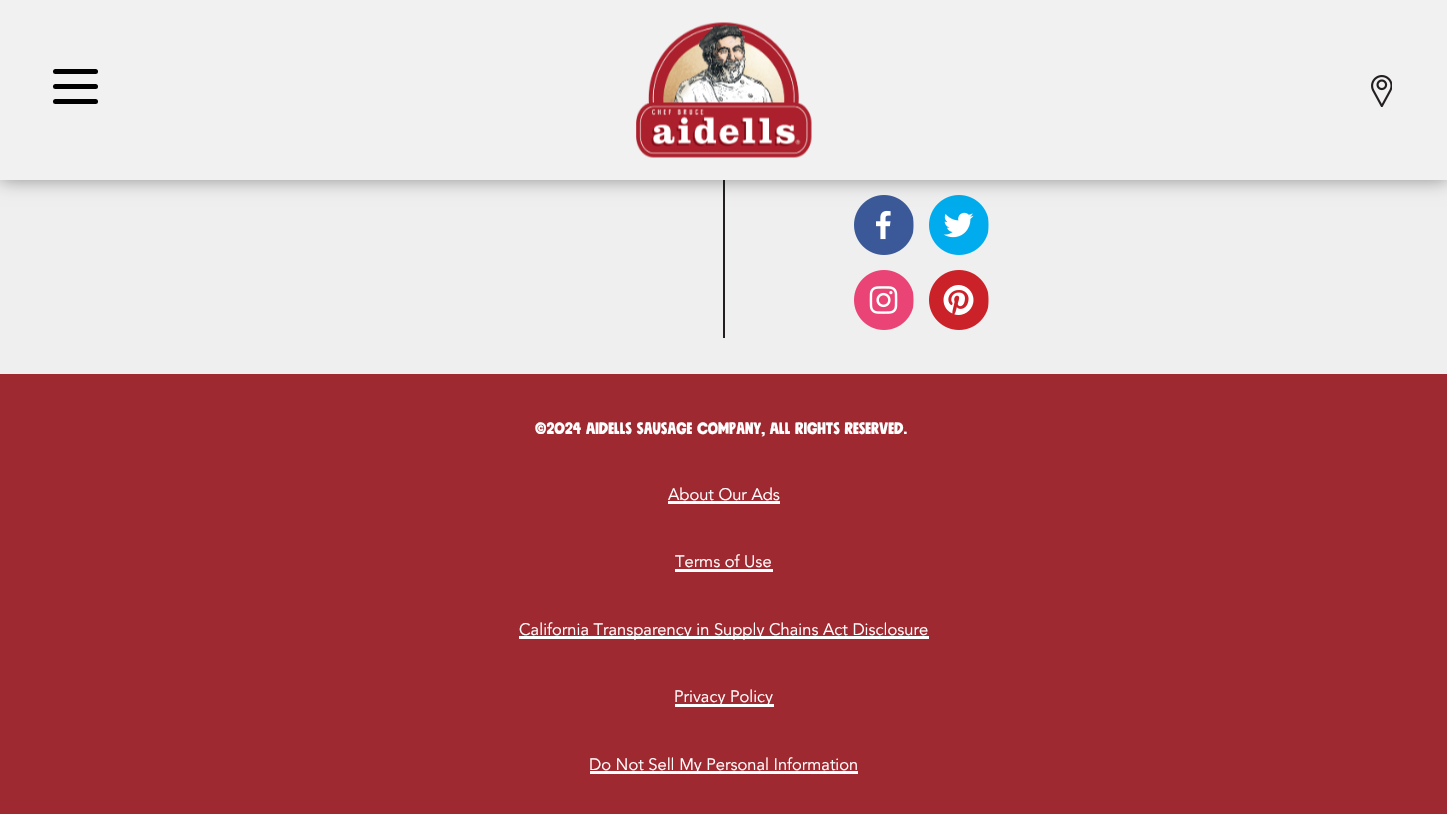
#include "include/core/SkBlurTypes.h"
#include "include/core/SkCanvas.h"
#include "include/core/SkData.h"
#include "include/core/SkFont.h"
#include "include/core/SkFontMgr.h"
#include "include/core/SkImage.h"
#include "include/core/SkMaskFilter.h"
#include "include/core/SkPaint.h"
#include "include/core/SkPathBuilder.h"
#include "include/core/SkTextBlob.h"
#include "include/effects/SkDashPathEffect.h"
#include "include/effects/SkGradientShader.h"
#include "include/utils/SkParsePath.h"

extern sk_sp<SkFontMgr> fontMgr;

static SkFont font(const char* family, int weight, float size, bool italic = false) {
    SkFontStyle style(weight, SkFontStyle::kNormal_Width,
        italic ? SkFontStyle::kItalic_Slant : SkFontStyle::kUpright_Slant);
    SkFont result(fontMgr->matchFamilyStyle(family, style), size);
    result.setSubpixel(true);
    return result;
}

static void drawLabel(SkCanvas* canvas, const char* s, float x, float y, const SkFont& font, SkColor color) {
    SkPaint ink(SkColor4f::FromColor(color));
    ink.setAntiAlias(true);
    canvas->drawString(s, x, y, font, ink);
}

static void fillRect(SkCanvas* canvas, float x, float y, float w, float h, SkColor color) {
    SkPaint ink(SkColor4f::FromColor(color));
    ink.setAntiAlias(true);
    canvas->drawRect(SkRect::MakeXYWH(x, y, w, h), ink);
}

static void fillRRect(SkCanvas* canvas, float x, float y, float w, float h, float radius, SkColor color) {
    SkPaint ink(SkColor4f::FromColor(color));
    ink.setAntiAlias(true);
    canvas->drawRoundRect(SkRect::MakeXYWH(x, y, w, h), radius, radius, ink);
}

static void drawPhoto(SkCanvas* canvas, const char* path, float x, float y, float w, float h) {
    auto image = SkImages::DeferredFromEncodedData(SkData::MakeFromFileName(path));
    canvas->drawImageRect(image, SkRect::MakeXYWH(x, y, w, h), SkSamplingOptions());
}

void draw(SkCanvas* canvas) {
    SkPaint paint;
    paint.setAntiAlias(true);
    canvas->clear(0xFFEFEFEF);
    fillRect(canvas, 723, 180, 2, 158, 0xFF231F20);
    drawPhoto(canvas, "assets/img3.png", 854, 195, 60, 60);
    drawPhoto(canvas, "assets/img4.png", 929, 195, 60, 60);
    paint.setColor(0x66000000);
    paint.setMaskFilter(SkMaskFilter::MakeBlur(kNormal_SkBlurStyle, 9));
    canvas->drawRect(SkRect::MakeXYWH(0, 0, 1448, 180), paint);
    paint.setMaskFilter(nullptr);
    fillRect(canvas, 0, 0, 1447, 180, 0xFFF1F1F1);
    fillRRect(canvas, 53, 84, 45, 5, 2.5f, 0xFF000000);
    fillRRect(canvas, 53, 69, 45, 5, 2.5f, 0xFF000000);
    fillRRect(canvas, 53, 99, 45, 5, 2.5f, 0xFF000000);
    drawPhoto(canvas, "assets/img1.png", 636, 22, 176, 136);
    drawPhoto(canvas, "assets/img2.png", 1371, 75, 21, 32);
    drawPhoto(canvas, "assets/img5.png", 854, 270, 60, 60);
    drawPhoto(canvas, "assets/img6.png", 929, 270, 60, 60);
    fillRect(canvas, 0, 374, 1447, 440, 0xFF9F2930);
    SkFont font1 = font("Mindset", 400, 16.5f);
    drawLabel(canvas, "©2024 Aidells Sausage Company, All Rights Reserved.", 535, 434, font1, 0xFFFFFFFF);
    SkFont font2 = font("Avenir", 400, 16.5f);
    drawLabel(canvas, "About Our Ads", 668, 500, font2, 0xFFFFFFFF);
    fillRect(canvas, 668, 501, 112, 3, 0xFFFFFFFF);
    drawLabel(canvas, "Terms of Use", 675, 567, font2, 0xFFFFFFFF);
    fillRect(canvas, 675, 569, 98, 3, 0xFFFFFFFF);
    fillRect(canvas, 519, 636, 410, 3, 0xFFFFFFFF);
    drawLabel(canvas, "California Transparency in Supply Chains Act Disclosure", 519, 635, font2, 0xFFFFFFFF);
    fillRect(canvas, 675, 704, 99, 3, 0xFFFFFFFF);
    drawLabel(canvas, "Privacy Policy", 674, 702, font2, 0xFFFFFFFF);
    fillRect(canvas, 590, 771, 268, 3, 0xFFFFFFFF);
    drawLabel(canvas, "Do Not Sell My Personal Information", 589, 770, font2, 0xFFFFFFFF);
}
